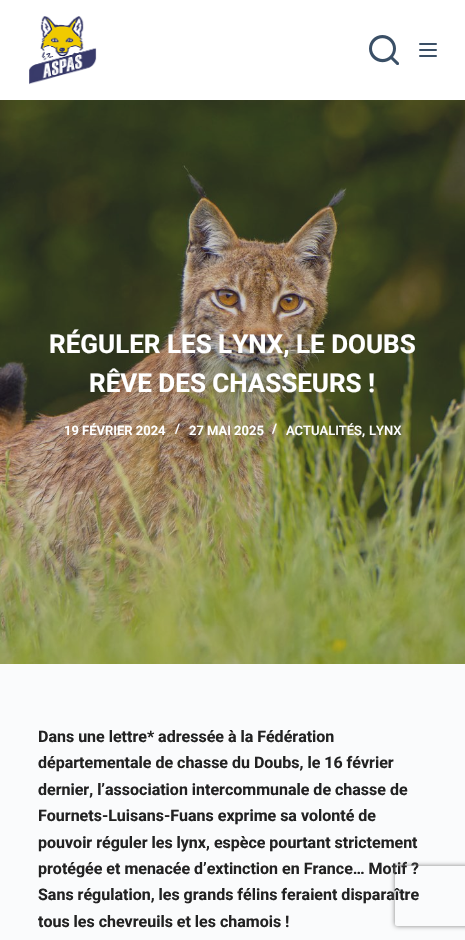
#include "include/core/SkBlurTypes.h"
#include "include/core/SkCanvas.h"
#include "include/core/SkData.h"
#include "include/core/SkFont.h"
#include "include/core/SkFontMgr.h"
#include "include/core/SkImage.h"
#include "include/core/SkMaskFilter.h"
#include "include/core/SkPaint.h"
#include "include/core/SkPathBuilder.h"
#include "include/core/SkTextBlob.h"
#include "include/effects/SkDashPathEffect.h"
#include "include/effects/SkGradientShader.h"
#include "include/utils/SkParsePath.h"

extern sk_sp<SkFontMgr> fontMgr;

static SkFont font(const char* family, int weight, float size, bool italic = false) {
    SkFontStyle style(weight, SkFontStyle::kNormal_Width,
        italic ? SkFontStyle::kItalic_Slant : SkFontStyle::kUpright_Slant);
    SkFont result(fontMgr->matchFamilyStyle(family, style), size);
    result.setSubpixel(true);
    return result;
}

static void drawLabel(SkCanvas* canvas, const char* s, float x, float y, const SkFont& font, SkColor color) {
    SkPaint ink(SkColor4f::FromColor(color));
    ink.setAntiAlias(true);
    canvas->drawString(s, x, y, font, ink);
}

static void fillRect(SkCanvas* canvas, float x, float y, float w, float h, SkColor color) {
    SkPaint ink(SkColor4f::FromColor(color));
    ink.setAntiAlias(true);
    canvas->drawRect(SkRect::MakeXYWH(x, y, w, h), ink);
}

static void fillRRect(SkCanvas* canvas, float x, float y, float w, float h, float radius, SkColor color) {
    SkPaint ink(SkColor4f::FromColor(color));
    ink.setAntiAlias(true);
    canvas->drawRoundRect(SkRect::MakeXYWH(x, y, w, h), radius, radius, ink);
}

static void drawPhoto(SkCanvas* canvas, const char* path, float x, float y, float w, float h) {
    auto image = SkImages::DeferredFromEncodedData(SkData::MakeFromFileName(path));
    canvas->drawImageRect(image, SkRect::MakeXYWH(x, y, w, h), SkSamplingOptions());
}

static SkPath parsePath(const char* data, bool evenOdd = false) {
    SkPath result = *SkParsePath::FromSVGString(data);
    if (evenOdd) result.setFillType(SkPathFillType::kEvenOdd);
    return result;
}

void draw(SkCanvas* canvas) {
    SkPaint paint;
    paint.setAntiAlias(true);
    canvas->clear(0xFFFAFBFC);
    fillRect(canvas, 0, 0, 465, 100, 0xFFFFFFFF);
    drawPhoto(canvas, "assets/img1.png", 29, 16, 68, 69);
    drawPhoto(canvas, "assets/img2.png", 369, 35, 30, 30);
    fillRRect(canvas, 419, 43, 18, 2, 1, 0xFF3A4F66);
    fillRRect(canvas, 419, 49, 18, 2, 1, 0xFF3A4F66);
    fillRRect(canvas, 419, 55, 18, 2, 1, 0xFF3A4F66);
    drawPhoto(canvas, "assets/img3.png", 0, 100, 465, 564);
    SkFont font1 = font("Roboto", 700, 26);
    drawLabel(canvas, "RÉGULER LES LYNX, LE DOUBS", 49, 353, font1, 0xFFFFFFFF);
    drawLabel(canvas, "RÊVE DES CHASSEURS !", 89, 392, font1, 0xFFFFFFFF);
    SkFont font2 = font("Roboto", 600, 13);
    drawLabel(canvas, "19 FÉVRIER 2024", 64, 435, font2, 0xFFFFFFFF);
    drawLabel(canvas, "/", 175, 433, font2, 0xFFFFFFFF);
    drawLabel(canvas, "27 MAI 2025", 189, 435, font2, 0xFFFFFFFF);
    drawLabel(canvas, "/", 272, 433, font2, 0xFFFFFFFF);
    SkFont font3 = font("Roboto", 500, 13);
    drawLabel(canvas, "ACTUALITÉS", 286, 435, font3, 0xFFFFFFFF);
    drawLabel(canvas, "LYNX", 369, 435, font3, 0xFFFFFFFF);
    drawLabel(canvas, ",", 362, 435, font2, 0xFFFFFFFF);
    SkFont font4 = font("Roboto", 700, 16);
    drawLabel(canvas, "Dans une lettre* adressée à la Fédération", 38, 742, font4, 0xFF222222);
    drawLabel(canvas, "départementale de chasse du Doubs, le 16 février", 38, 768, font4, 0xFF222222);
    drawLabel(canvas, "dernier, l’association intercommunale de chasse de", 38, 795, font4, 0xFF222222);
    drawLabel(canvas, "Fournets-Luisans-Fuans exprime sa volonté de", 38, 821, font4, 0xFF222222);
    drawLabel(canvas, "pouvoir réguler les lynx, espèce pourtant strictement", 38, 848, font4, 0xFF222222);
    drawLabel(canvas, "protégée et menacée d’extinction en France… Motif ?", 38, 874, font4, 0xFF222222);
    drawLabel(canvas, "Sans régulation, les grands félins feraient disparaître", 38, 900, font4, 0xFF222222);
    drawLabel(canvas, "tous les chevreuils et les chamois !", 38, 927, font4, 0xFF222222);
    canvas->save();
    canvas->clipPath(parsePath("M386 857H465V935H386ZM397 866H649C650 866 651 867 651 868V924C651 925 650 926 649 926H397C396 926 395 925 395 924V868C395 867 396 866 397 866Z", true), true);
    paint.setColor(0xFF808080);
    paint.setMaskFilter(SkMaskFilter::MakeBlur(kNormal_SkBlurStyle, 2.5f));
    canvas->drawRoundRect(SkRect::MakeXYWH(395, 866, 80, 60), 2, 2, paint);
    paint.setMaskFilter(nullptr);
    canvas->restore();
}
